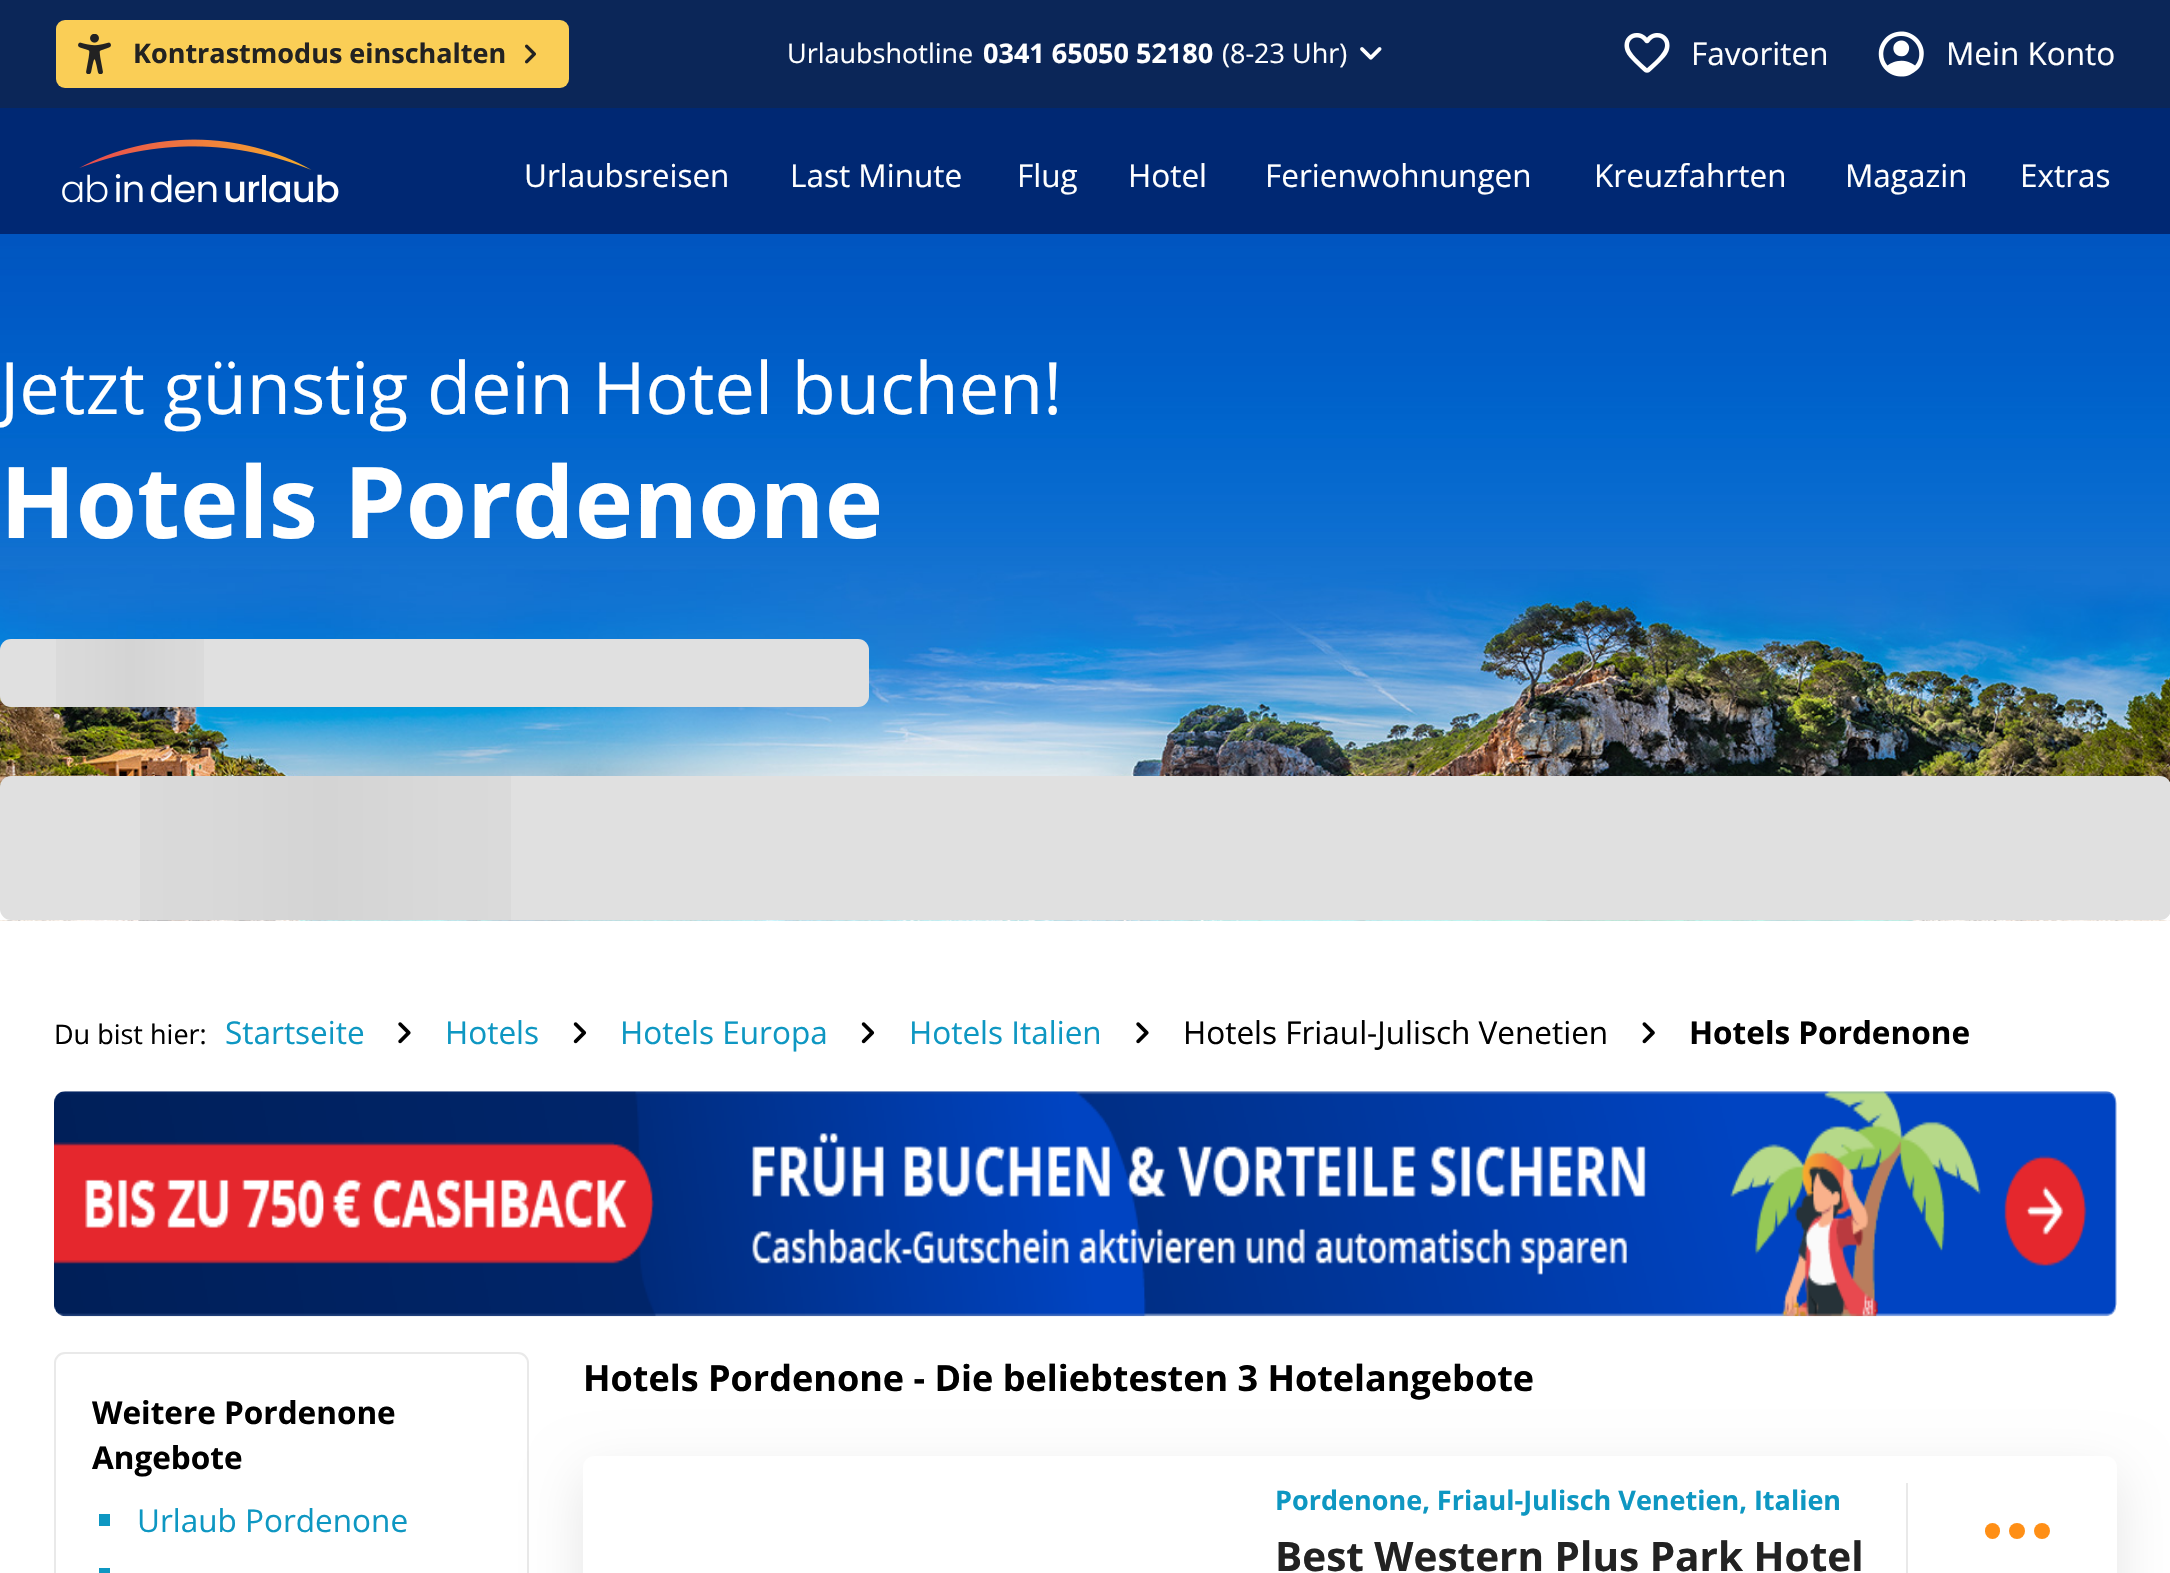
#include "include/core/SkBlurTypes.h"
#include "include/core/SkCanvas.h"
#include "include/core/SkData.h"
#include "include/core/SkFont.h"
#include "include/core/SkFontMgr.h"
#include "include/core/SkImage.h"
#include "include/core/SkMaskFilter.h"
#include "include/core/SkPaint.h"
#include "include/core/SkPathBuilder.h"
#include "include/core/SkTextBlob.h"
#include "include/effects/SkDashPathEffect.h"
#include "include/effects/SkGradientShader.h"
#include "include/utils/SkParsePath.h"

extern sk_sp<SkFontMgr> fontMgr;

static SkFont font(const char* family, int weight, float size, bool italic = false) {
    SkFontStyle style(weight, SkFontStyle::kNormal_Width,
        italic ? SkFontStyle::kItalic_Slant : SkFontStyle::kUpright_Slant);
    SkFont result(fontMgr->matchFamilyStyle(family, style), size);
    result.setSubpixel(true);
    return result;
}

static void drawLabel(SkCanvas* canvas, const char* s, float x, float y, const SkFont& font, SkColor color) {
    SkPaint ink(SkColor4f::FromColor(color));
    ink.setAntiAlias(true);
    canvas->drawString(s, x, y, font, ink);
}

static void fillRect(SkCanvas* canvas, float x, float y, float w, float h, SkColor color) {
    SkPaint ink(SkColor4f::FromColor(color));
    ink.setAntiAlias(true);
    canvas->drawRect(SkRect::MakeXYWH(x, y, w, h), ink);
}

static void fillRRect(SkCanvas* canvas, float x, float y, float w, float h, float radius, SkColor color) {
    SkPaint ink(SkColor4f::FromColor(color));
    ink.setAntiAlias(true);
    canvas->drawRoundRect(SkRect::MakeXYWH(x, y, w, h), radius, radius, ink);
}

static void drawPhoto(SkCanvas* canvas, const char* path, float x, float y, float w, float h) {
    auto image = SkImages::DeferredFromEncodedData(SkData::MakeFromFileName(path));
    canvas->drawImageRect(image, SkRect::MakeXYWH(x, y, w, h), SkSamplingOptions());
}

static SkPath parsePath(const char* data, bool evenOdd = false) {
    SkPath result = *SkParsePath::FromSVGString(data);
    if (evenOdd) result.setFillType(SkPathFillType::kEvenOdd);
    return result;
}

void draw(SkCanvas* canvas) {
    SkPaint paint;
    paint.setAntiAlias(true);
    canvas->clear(0xFFFFFFFF);
    fillRect(canvas, 0, 0, 2170, 108, 0xFF0B2658);
    fillRRect(canvas, 56, 20, 513, 68, 9, 0xFFFACE56);
    drawPhoto(canvas, "assets/img1.png", 78, 34, 33, 40);
    SkFont font1 = font("Open Sans", 700, 27);
    drawLabel(canvas, "Kontrastmodus einschalten", 133, 63, font1, 0xFF222222);
    drawPhoto(canvas, "assets/img2.png", 525, 44, 11, 20);
    SkFont font2 = font("Open Sans", 400, 27);
    drawLabel(canvas, "Urlaubshotline", 787, 63, font2, 0xFFFFFFFF);
    drawLabel(canvas, "0341 65050 52180", 983, 63, font1, 0xFFFFFFFF);
    drawLabel(canvas, "(8-23 Uhr)", 1222, 63, font2, 0xFFFFFFFF);
    drawPhoto(canvas, "assets/img3.png", 1360, 47, 22, 13);
    drawPhoto(canvas, "assets/img4.png", 1624, 33, 46, 40);
    SkFont font3 = font("Open Sans", 400, 31.5f);
    drawLabel(canvas, "Favoriten", 1691, 65, font3, 0xFFFFFFFF);
    drawPhoto(canvas, "assets/img5.png", 1878, 31, 46, 46);
    drawLabel(canvas, "Mein Konto", 1946, 65, font3, 0xFFFFFFFF);
    fillRect(canvas, 0, 108, 2170, 126, 0xFF002873);
    drawPhoto(canvas, "assets/img6.png", 62, 139, 277, 64);
    drawLabel(canvas, "Urlaubsreisen", 524, 187, font3, 0xFFFFFFFF);
    drawLabel(canvas, "Last Minute", 790, 187, font3, 0xFFFFFFFF);
    drawLabel(canvas, "Flug", 1017, 187, font3, 0xFFFFFFFF);
    drawLabel(canvas, "Hotel", 1128, 187, font3, 0xFFFFFFFF);
    drawLabel(canvas, "Ferienwohnungen", 1265, 187, font3, 0xFFFFFFFF);
    drawLabel(canvas, "Kreuzfahrten", 1594, 187, font3, 0xFFFFFFFF);
    drawLabel(canvas, "Magazin", 1845, 187, font3, 0xFFFFFFFF);
    drawLabel(canvas, "Extras", 2020, 187, font3, 0xFFFFFFFF);
    drawPhoto(canvas, "assets/img7.png", 0, 234, 2170, 687);
    SkFont font4 = font("Open Sans", 400, 72);
    drawLabel(canvas, "Jetzt günstig dein Hotel buchen!", 0, 414, font4, 0xFFFFFFFF);
    SkFont font5 = font("Open Sans", 700, 99);
    drawLabel(canvas, "Hotels Pordenone", 0, 538, font5, 0xFFFFFFFF);
    fillRRect(canvas, 0, 639, 869, 68, 11, 0xFFE0E0E0);
    {
        const SkColor colors[] = {0x00000000, 0x0D000000, 0x00000000};
        const float stops[] = {0, 0.15f, 0.3f};
        const SkPoint ends[] = {{0, 673}, {869, 673}};
        paint.setShader(SkGradientShader::MakeLinear(ends, colors, stops, 3, SkTileMode::kClamp));
        paint.setAlpha(255);
    }
    canvas->drawRect(SkRect::MakeXYWH(56, 639, 148, 68), paint);
    fillRect(canvas, 0, 909, 2170, 11, 0xFFFFFFFF);
    fillRRect(canvas, 0, 776, 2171, 144, 11, 0xFFE0E0E0);
    {
        const SkColor colors[] = {0x00000000, 0x0D000000, 0x00000000};
        const float stops[] = {0, 0.15f, 0.3f};
        const SkPoint ends[] = {{0, 848}, {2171, 848}};
        paint.setShader(SkGradientShader::MakeLinear(ends, colors, stops, 3, SkTileMode::kClamp));
        paint.setAlpha(255);
    }
    canvas->drawRect(SkRect::MakeXYWH(140, 776, 371, 144), paint);
    drawLabel(canvas, "Du bist hier:", 54, 1044, font2, 0xFF000000);
    drawLabel(canvas, "Startseite", 225, 1044, font3, 0xFF0E97C2);
    drawPhoto(canvas, "assets/img8.png", 398, 1022, 13, 22);
    drawLabel(canvas, "Hotels", 445, 1044, font3, 0xFF0E97C2);
    drawPhoto(canvas, "assets/img9.png", 573, 1022, 14, 22);
    drawLabel(canvas, "Hotels Europa", 620, 1044, font3, 0xFF0E97C2);
    drawPhoto(canvas, "assets/img9.png", 861, 1022, 14, 22);
    drawLabel(canvas, "Hotels Italien", 909, 1044, font3, 0xFF0E97C2);
    drawPhoto(canvas, "assets/img8.png", 1136, 1022, 13, 22);
    drawLabel(canvas, "Hotels Friaul-Julisch Venetien", 1183, 1044, font3, 0xFF000000);
    drawPhoto(canvas, "assets/img10.png", 1642, 1022, 13, 22);
    SkFont font6 = font("Open Sans", 700, 31.5f);
    drawLabel(canvas, "Hotels Pordenone", 1689, 1044, font6, 0xFF000000);
    drawPhoto(canvas, "assets/img11.png", 54, 1091, 2063, 226);
    paint.setStroke(true);
    paint.setStrokeWidth(2);
    paint.setShader(nullptr);
    paint.setColor(0xFFE9E9E9);
    canvas->drawRoundRect(SkRect::MakeXYWH(55, 1353, 473, 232), 10, 10, paint);
    drawLabel(canvas, "Weitere Pordenone", 92, 1424, font6, 0xFF000000);
    drawLabel(canvas, "Angebote", 92, 1469, font6, 0xFF000000);
    fillRect(canvas, 99, 1514, 11, 12, 0xFF0E97C2);
    drawLabel(canvas, "Urlaub Pordenone", 137, 1532, font3, 0xFF0E97C2);
    fillRect(canvas, 99, 1568, 11, 5, 0xFF0E97C2);
    SkFont font7 = font("Open Sans", 700, 36);
    drawLabel(canvas, "Hotels Pordenone - Die beliebtesten 3 Hotelangebote", 583, 1391, font7, 0xFF000000);
    canvas->save();
    canvas->clipPath(parsePath("M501 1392H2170V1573H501ZM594 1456H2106C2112 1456 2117 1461 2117 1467V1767C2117 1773 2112 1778 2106 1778H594C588 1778 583 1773 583 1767V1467C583 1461 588 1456 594 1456Z", true), true);
    paint.setStroke(false);
    paint.setColor(0x1A000000);
    paint.setMaskFilter(SkMaskFilter::MakeBlur(kNormal_SkBlurStyle, 27));
    canvas->drawRoundRect(SkRect::MakeXYWH(583, 1474, 1534, 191), 11, 11, paint);
    paint.setMaskFilter(nullptr);
    canvas->restore();
    drawLabel(canvas, "Pordenone, Friaul-Julisch Venetien, Italien", 1275, 1510, font1, 0xFF0E97C2);
    SkFont font8 = font("Open Sans", 700, 40.5f);
    drawLabel(canvas, "Best Western Plus Park Hotel", 1275, 1571, font8, 0xFF222222);
    fillRect(canvas, 1906, 1483, 2, 90, 0xFFE9E9E9);
    fillRRect(canvas, 1985, 1523, 15, 16, 7.5f, 0xFFFF8F16);
    paint.setColor(0xFFFF8F16);
    canvas->drawCircle(2017, 1531, 8, paint);
    canvas->drawCircle(2042, 1531, 8, paint);
}
